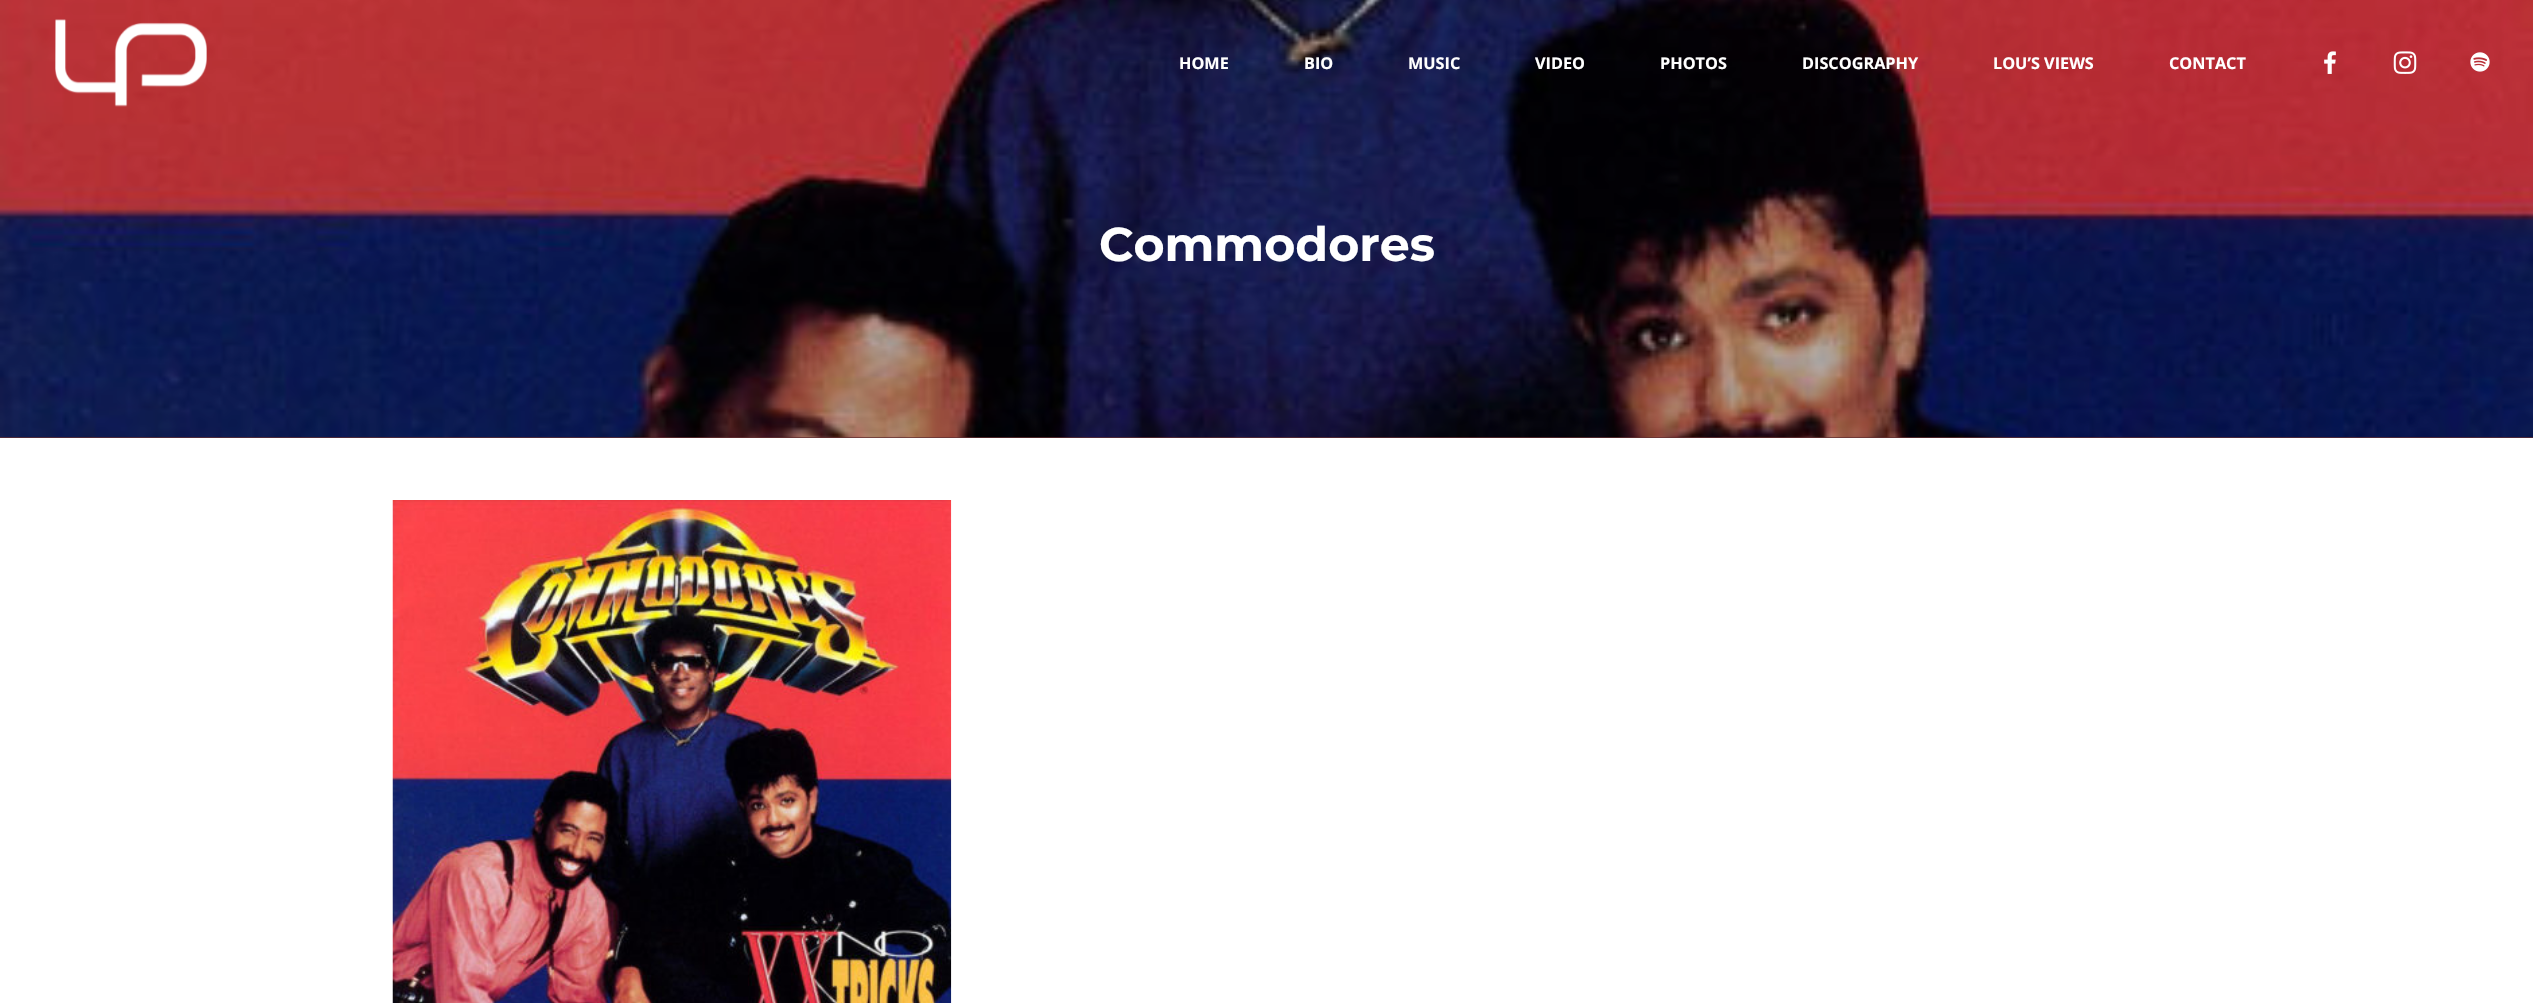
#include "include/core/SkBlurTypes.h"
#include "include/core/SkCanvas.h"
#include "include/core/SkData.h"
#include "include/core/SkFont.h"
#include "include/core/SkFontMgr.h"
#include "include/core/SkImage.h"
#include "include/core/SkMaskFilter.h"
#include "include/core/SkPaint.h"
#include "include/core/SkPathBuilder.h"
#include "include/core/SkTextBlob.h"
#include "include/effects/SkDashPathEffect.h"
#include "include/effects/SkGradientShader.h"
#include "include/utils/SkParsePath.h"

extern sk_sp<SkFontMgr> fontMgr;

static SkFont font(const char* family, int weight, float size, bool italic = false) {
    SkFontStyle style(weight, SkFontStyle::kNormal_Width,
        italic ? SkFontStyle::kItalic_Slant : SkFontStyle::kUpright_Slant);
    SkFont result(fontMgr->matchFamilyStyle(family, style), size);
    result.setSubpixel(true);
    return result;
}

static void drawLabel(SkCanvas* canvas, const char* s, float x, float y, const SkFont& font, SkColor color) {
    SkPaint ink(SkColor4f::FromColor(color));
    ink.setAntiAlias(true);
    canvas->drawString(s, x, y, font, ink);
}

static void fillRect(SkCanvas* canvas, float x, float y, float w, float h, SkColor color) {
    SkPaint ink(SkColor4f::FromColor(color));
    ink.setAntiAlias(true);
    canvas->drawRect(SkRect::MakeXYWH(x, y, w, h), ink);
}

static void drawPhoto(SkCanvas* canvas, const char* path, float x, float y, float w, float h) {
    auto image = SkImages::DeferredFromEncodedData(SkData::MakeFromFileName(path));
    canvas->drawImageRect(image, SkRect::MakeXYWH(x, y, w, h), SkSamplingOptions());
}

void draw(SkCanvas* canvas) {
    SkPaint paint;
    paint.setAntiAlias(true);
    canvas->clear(0xFF622E2F);
    drawPhoto(canvas, "assets/img5.png", 0, 0, 2533, 438);
    drawPhoto(canvas, "assets/img1.png", 55, 19, 152, 88);
    SkFont font1 = font("Open Sans", 700, 16.25f);
    drawLabel(canvas, "HOME", 1179, 69, font1, 0xFFFFFFFF);
    drawLabel(canvas, "BIO", 1304, 69, font1, 0xFFFFFFFF);
    drawLabel(canvas, "MUSIC", 1408, 69, font1, 0xFFFFFFFF);
    drawLabel(canvas, "VIDEO", 1535, 69, font1, 0xFFFFFFFF);
    drawLabel(canvas, "PHOTOS", 1660, 69, font1, 0xFFFFFFFF);
    drawLabel(canvas, "DISCOGRAPHY", 1802, 69, font1, 0xFFFFFFFF);
    drawLabel(canvas, "LOU’S VIEWS", 1993, 69, font1, 0xFFFFFFFF);
    drawLabel(canvas, "CONTACT", 2169, 69, font1, 0xFFFFFFFF);
    drawPhoto(canvas, "assets/img2.png", 2324, 51, 12, 23);
    drawPhoto(canvas, "assets/img3.png", 2393, 51, 24, 23);
    drawPhoto(canvas, "assets/img4.png", 2470, 52, 20, 20);
    SkFont font2 = font("Montserrat", 700, 47.5f);
    drawLabel(canvas, "Commodores", 1099, 261, font2, 0xFFFFFFFF);
    fillRect(canvas, 0, 438, 2533, 565, 0xFFFFFFFF);
    drawPhoto(canvas, "assets/img6.png", 392, 500, 560, 503);
}
